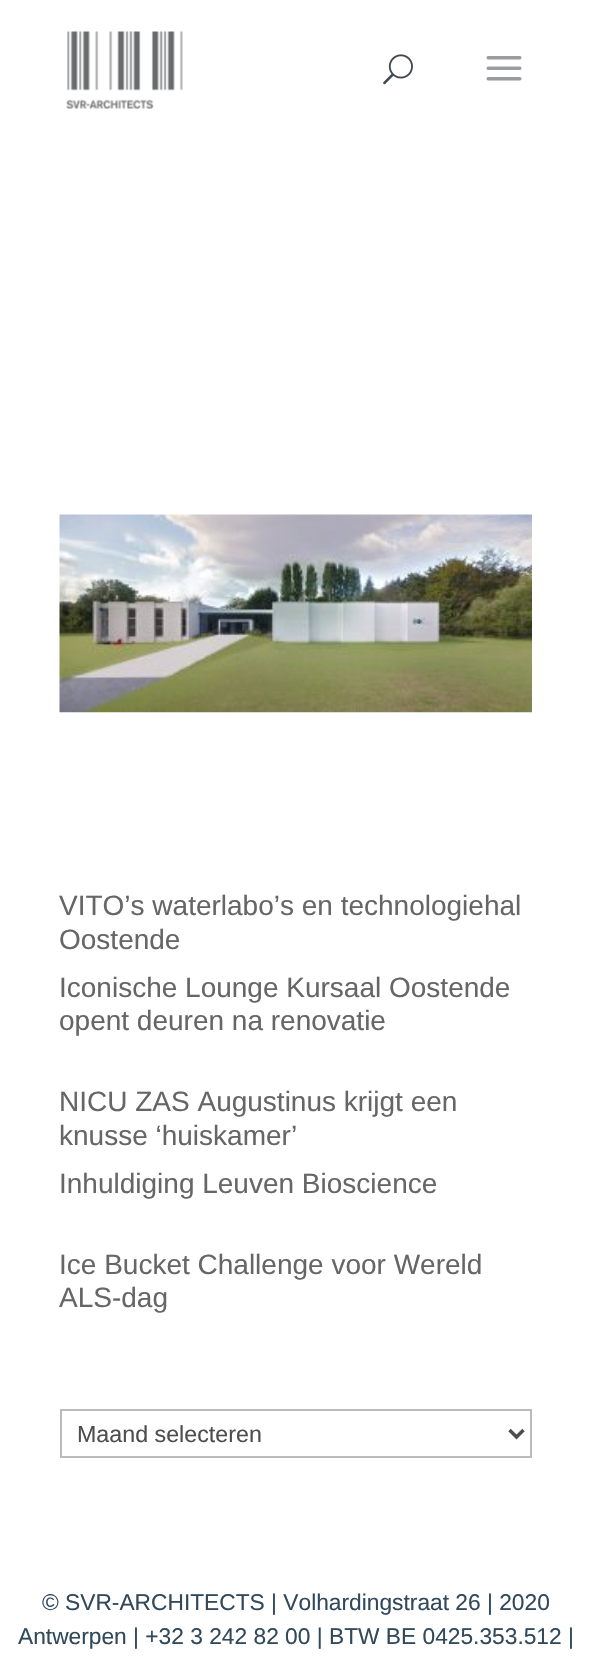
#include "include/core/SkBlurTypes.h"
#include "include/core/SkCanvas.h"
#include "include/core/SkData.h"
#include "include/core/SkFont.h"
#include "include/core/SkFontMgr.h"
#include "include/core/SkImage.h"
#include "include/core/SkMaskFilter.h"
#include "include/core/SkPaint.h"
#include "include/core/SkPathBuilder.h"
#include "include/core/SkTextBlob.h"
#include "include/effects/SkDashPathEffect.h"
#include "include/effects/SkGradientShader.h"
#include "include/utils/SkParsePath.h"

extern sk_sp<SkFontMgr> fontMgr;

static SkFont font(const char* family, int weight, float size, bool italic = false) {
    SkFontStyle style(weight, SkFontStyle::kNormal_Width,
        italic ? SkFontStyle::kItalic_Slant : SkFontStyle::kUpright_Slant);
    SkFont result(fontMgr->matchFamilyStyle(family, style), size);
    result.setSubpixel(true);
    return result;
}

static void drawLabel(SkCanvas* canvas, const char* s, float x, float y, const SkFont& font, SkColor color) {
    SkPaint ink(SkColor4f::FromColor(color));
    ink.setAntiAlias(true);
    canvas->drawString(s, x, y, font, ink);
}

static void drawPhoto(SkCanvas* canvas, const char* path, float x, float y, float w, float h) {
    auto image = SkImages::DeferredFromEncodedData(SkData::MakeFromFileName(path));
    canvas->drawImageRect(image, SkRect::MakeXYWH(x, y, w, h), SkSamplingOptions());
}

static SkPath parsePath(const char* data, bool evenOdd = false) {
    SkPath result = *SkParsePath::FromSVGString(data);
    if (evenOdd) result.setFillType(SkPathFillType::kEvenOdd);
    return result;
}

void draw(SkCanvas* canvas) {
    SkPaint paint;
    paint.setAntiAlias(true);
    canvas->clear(0xFFFFFFFF);
    drawPhoto(canvas, "assets/img1.png", 66, 31, 117, 78);
    drawPhoto(canvas, "assets/img2.png", 383, 54, 30, 31);
    drawPhoto(canvas, "assets/img3.png", 486, 56, 36, 25);
    drawPhoto(canvas, "assets/img4.png", 59, 514, 473, 199);
    SkFont font1 = font("Liberation Sans", 400, 28);
    drawLabel(canvas, "VITO’s waterlabo’s en technologiehal", 59, 915, font1, 0xFF666666);
    drawLabel(canvas, "Oostende", 59, 949, font1, 0xFF666666);
    drawLabel(canvas, "Iconische Lounge Kursaal Oostende", 59, 997, font1, 0xFF666666);
    drawLabel(canvas, "opent deuren na renovatie", 59, 1030, font1, 0xFF666666);
    drawLabel(canvas, "NICU ZAS Augustinus krijgt een", 59, 1111, font1, 0xFF666666);
    drawLabel(canvas, "knusse ‘huiskamer’", 59, 1145, font1, 0xFF666666);
    drawLabel(canvas, "Inhuldiging Leuven Bioscience", 59, 1193, font1, 0xFF666666);
    drawLabel(canvas, "Ice Bucket Challenge voor Wereld", 59, 1274, font1, 0xFF666666);
    drawLabel(canvas, "ALS-dag", 59, 1307, font1, 0xFF666666);
    paint.setStroke(true);
    paint.setStrokeWidth(2);
    paint.setColor(0xFFBBBBBB);
    canvas->drawRect(SkRect::MakeXYWH(61, 1410, 470, 47), paint);
    paint.setStrokeWidth(3.5f);
    paint.setColor(0xFF4E4E4E);
    canvas->drawPath(parsePath("M509.5 1430L516.5 1437L523.5 1430"), paint);
    SkFont font2 = font("Liberation Sans", 400, 23.25f);
    drawLabel(canvas, "Maand selecteren", 77, 1442, font2, 0xFF4E4E4E);
    SkFont font3 = font("Liberation Sans", 400, 22.75f);
    drawLabel(canvas, "© SVR-ARCHITECTS | Volhardingstraat 26 | 2020", 42, 1610, font3, 0xFF31495A);
    drawLabel(canvas, "Antwerpen | +32 3 242 82 00 | BTW BE 0425.353.512 |", 18, 1644, font3, 0xFF31495A);
}
